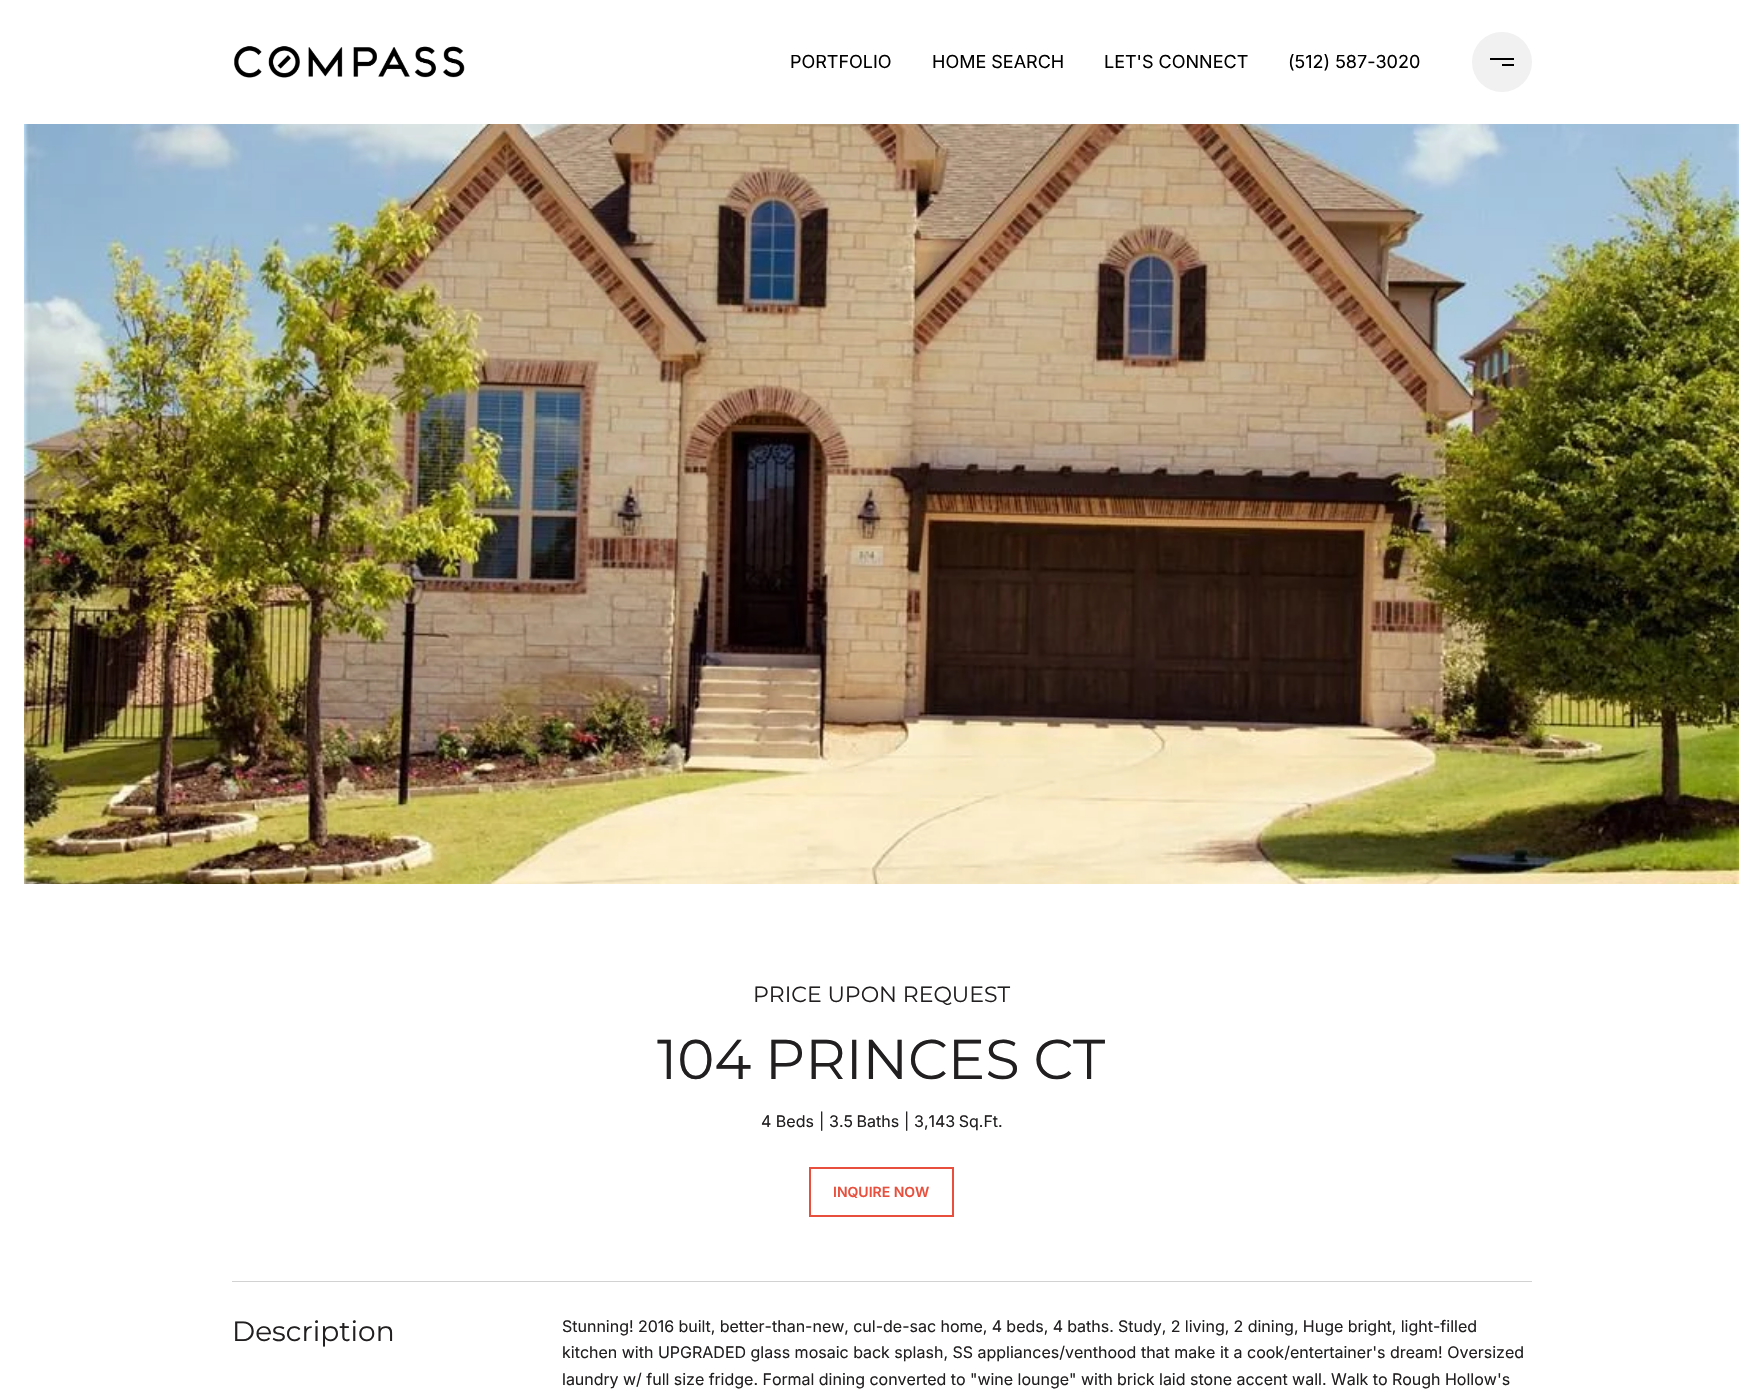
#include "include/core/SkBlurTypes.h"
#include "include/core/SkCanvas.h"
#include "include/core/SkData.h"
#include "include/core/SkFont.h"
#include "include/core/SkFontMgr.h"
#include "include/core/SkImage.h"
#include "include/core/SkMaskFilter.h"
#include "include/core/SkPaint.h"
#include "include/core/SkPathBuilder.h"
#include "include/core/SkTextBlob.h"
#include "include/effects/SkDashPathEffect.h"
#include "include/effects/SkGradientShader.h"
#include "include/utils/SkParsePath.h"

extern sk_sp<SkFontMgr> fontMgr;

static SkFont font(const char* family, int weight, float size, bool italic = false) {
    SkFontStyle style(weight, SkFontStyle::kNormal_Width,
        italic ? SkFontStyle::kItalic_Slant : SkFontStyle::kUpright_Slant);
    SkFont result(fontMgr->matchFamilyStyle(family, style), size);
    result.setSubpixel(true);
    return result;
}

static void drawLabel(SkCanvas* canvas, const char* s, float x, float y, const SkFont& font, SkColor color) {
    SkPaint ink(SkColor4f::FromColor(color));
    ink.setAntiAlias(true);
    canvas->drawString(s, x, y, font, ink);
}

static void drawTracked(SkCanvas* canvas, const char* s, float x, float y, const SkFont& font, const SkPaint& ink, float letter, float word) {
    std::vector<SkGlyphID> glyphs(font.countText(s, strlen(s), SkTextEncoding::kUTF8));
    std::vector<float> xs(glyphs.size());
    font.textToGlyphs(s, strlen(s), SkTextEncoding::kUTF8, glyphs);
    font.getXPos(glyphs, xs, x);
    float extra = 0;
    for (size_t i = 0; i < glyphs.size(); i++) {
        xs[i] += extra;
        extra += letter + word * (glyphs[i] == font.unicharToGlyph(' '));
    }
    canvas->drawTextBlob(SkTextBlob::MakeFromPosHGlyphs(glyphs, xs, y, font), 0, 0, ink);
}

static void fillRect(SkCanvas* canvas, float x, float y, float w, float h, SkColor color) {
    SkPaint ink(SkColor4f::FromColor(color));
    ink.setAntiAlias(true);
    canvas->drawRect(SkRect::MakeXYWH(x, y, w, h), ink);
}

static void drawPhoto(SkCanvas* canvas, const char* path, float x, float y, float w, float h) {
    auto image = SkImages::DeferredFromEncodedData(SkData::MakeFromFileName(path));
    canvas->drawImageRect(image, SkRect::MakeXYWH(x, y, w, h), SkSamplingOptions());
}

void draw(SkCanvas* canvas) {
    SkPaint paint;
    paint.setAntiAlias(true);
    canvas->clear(0xFFFFFFFF);
    drawPhoto(canvas, "assets/img1.png", 234, 46, 231, 32);
    SkFont font1 = font("Inter", 400, 18);
    drawLabel(canvas, "PORTFOLIO", 790, 68, font1, 0xFF000000);
    drawLabel(canvas, "HOME SEARCH", 932, 68, font1, 0xFF000000);
    drawLabel(canvas, "LET'S CONNECT", 1104, 68, font1, 0xFF000000);
    drawLabel(canvas, "(512) 587-3020", 1288, 68, font1, 0xFF000000);
    paint.setColor(0xFFF1F1F1);
    canvas->drawCircle(1502, 62, 30, paint);
    fillRect(canvas, 1490, 58, 24, 2, 0xFF000000);
    fillRect(canvas, 1502, 64, 12, 2, 0xFF000000);
    drawPhoto(canvas, "assets/img2.png", 24, 124, 1715, 760);
    SkFont font2 = font("Montserrat", 400, 22);
    drawLabel(canvas, "PRICE UPON REQUEST", 753, 1002, font2, 0xFF211F1F);
    SkFont font3 = font("Montserrat", 400, 56);
    paint.setColor(0xFF211F1F);
    drawTracked(canvas, "104 PRINCES CT", 657, 1079, font3, paint, 0, -1);
    SkFont font4 = font("Inter", 400, 16);
    drawLabel(canvas, "4 Beds", 761, 1127, font4, 0xFF211F1F);
    drawLabel(canvas, "|", 819, 1127, font4, 0xFF211F1F);
    drawTracked(canvas, "3.5 Baths", 829, 1127, font4, paint, 0, -1);
    drawLabel(canvas, "|", 904, 1127, font4, 0xFF211F1F);
    drawTracked(canvas, "3,143 Sq.Ft.", 914, 1127, font4, paint, 0, -1);
    paint.setStroke(true);
    paint.setStrokeWidth(2);
    paint.setColor(0xFFE8503D);
    canvas->drawRect(SkRect::MakeXYWH(810, 1168, 143, 48), paint);
    SkFont font5 = font("Inter", 600, 14);
    drawLabel(canvas, "INQUIRE NOW", 833, 1197, font5, 0xFFE8503D);
    fillRect(canvas, 232, 1281, 1300, 1, 0xFFD3D2D2);
    SkFont font6 = font("Montserrat", 400, 28);
    drawLabel(canvas, "Description", 232, 1341, font6, 0xFF211F1F);
    paint.setStroke(false);
    paint.setColor(0xFF211F1F);
    drawTracked(canvas, "Stunning! 2016 built, better-than-new, cul-de-sac home, 4 beds, 4 baths. Study, 2 living, 2 dining, Huge bright, light-filled", 562, 1332, font4, paint, 0, -0.2f);
    drawLabel(canvas, "kitchen with UPGRADED glass mosaic back splash, SS appliances/venthood that make it a cook/entertainer's dream! Oversized", 562, 1358, font4, 0xFF211F1F);
    drawTracked(canvas, "laundry w/ full size fridge. Formal dining converted to \"wine lounge\" with brick laid stone accent wall. Walk to Rough Hollow's", 562, 1385, font4, paint, 0, -0.1f);
}
